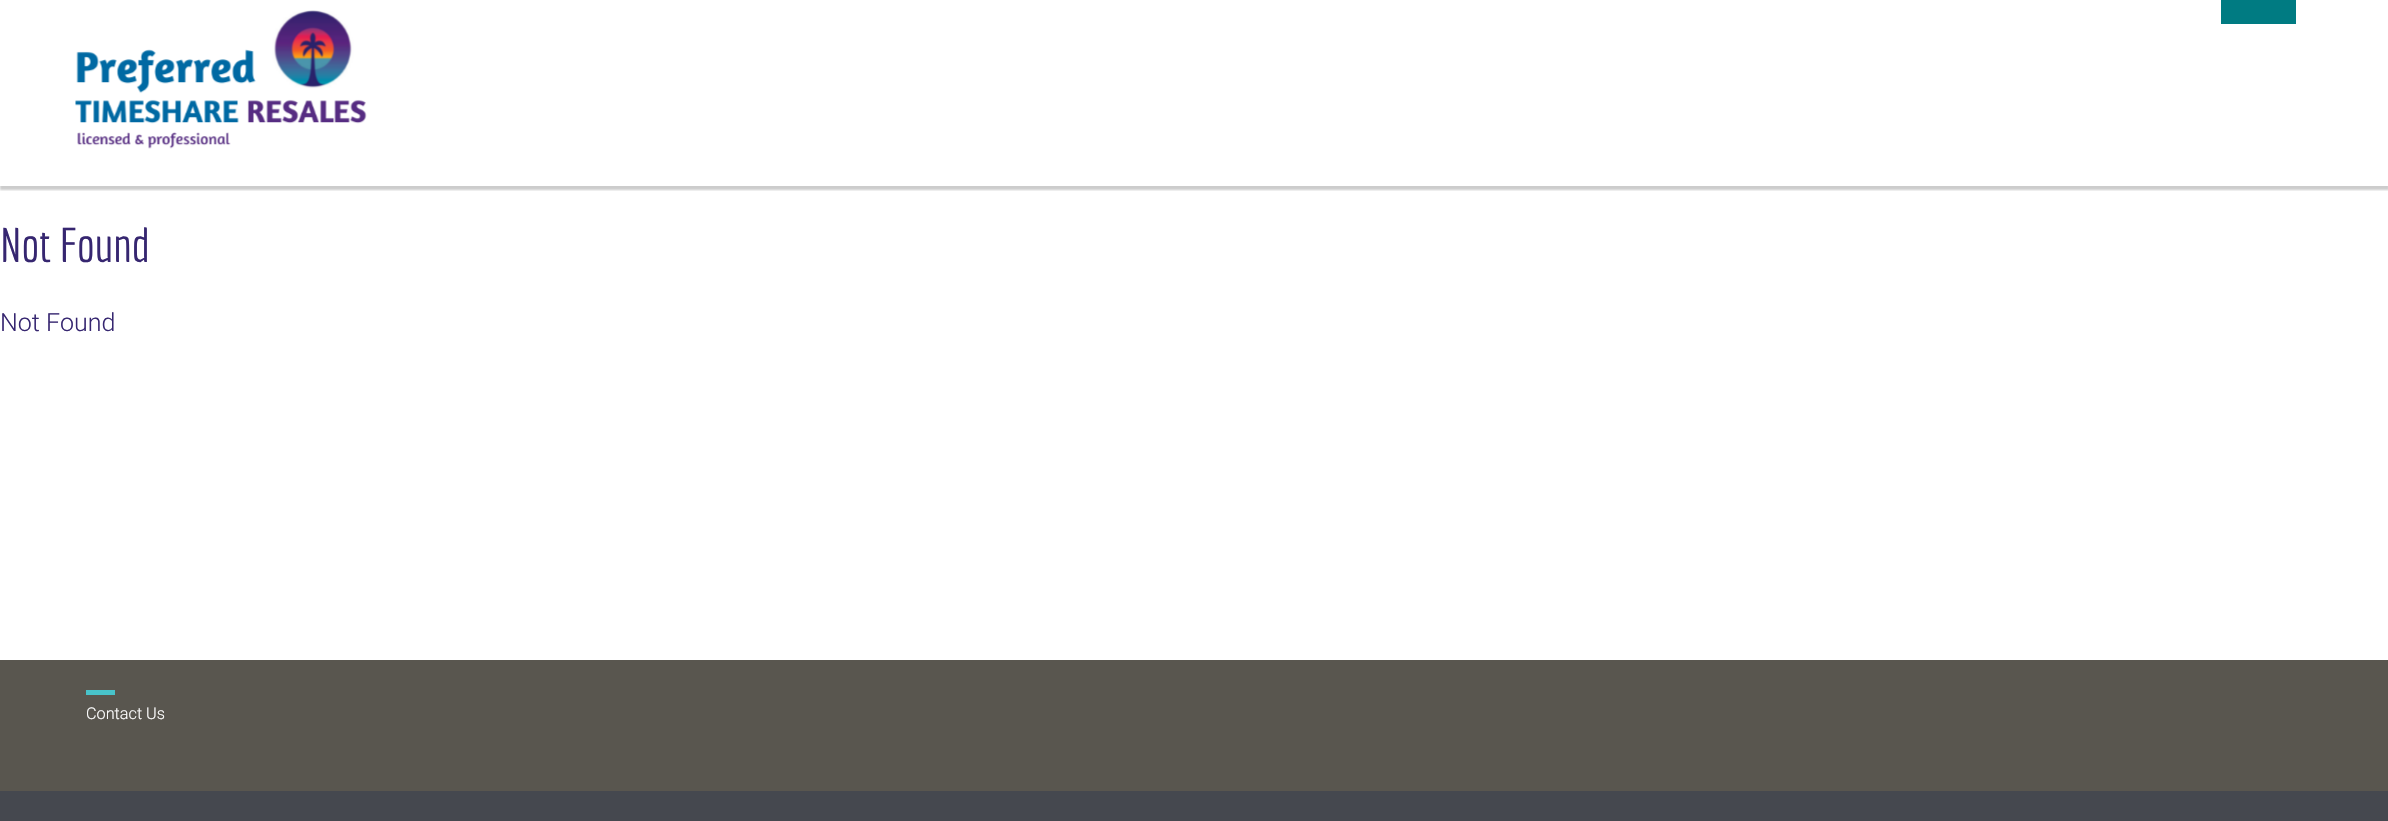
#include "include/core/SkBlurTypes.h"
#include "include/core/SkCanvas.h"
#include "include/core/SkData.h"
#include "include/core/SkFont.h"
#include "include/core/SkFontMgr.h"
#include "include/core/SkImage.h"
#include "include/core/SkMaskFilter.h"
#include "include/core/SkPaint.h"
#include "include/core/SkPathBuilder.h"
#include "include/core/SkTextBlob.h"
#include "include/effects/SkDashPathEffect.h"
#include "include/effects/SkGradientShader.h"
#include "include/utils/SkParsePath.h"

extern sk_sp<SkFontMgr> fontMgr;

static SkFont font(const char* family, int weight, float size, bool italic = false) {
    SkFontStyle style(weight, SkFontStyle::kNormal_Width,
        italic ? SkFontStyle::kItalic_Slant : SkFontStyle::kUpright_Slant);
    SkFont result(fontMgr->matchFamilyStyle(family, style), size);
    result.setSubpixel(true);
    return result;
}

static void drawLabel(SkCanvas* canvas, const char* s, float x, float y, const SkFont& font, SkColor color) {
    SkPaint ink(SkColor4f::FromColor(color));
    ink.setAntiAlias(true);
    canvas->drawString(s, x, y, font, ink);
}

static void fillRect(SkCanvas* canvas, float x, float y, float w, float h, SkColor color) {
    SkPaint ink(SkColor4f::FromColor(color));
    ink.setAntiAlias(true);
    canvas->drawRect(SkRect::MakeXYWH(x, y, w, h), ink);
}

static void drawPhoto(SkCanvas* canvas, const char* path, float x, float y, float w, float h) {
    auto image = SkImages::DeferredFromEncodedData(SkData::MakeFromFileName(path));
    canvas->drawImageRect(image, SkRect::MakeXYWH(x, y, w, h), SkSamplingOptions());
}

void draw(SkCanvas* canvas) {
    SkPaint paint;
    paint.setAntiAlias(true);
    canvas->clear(0xFFFFFFFF);
    canvas->save();
    canvas->clipRect(SkRect::MakeXYWH(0, 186, 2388, 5));
    paint.setColor(0x33000000);
    paint.setMaskFilter(SkMaskFilter::MakeBlur(kNormal_SkBlurStyle, 1));
    canvas->drawRect(SkRect::MakeXYWH(0, 4, 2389, 186), paint);
    paint.setMaskFilter(nullptr);
    canvas->restore();
    drawPhoto(canvas, "assets/img1.png", 75, 10, 292, 139);
    fillRect(canvas, 2221, 0, 75, 24, 0xFF007B82);
    SkFont font1 = font("Economica", 400, 47.5f);
    drawLabel(canvas, "Not Found", 0, 262, font1, 0xFF362670);
    SkFont font2 = font("Roboto", 300, 25);
    drawLabel(canvas, "Not Found", 0, 331, font2, 0xFF362670);
    fillRect(canvas, 0, 660, 2388, 131, 0xFF59564F);
    fillRect(canvas, 86, 690, 29, 5, 0xFF48C3CA);
    SkFont font3 = font("Roboto", 300, 16.25f);
    drawLabel(canvas, "Contact Us", 86, 719, font3, 0xFFFFFFFF);
    fillRect(canvas, 0, 791, 2388, 30, 0xFF45484F);
}
